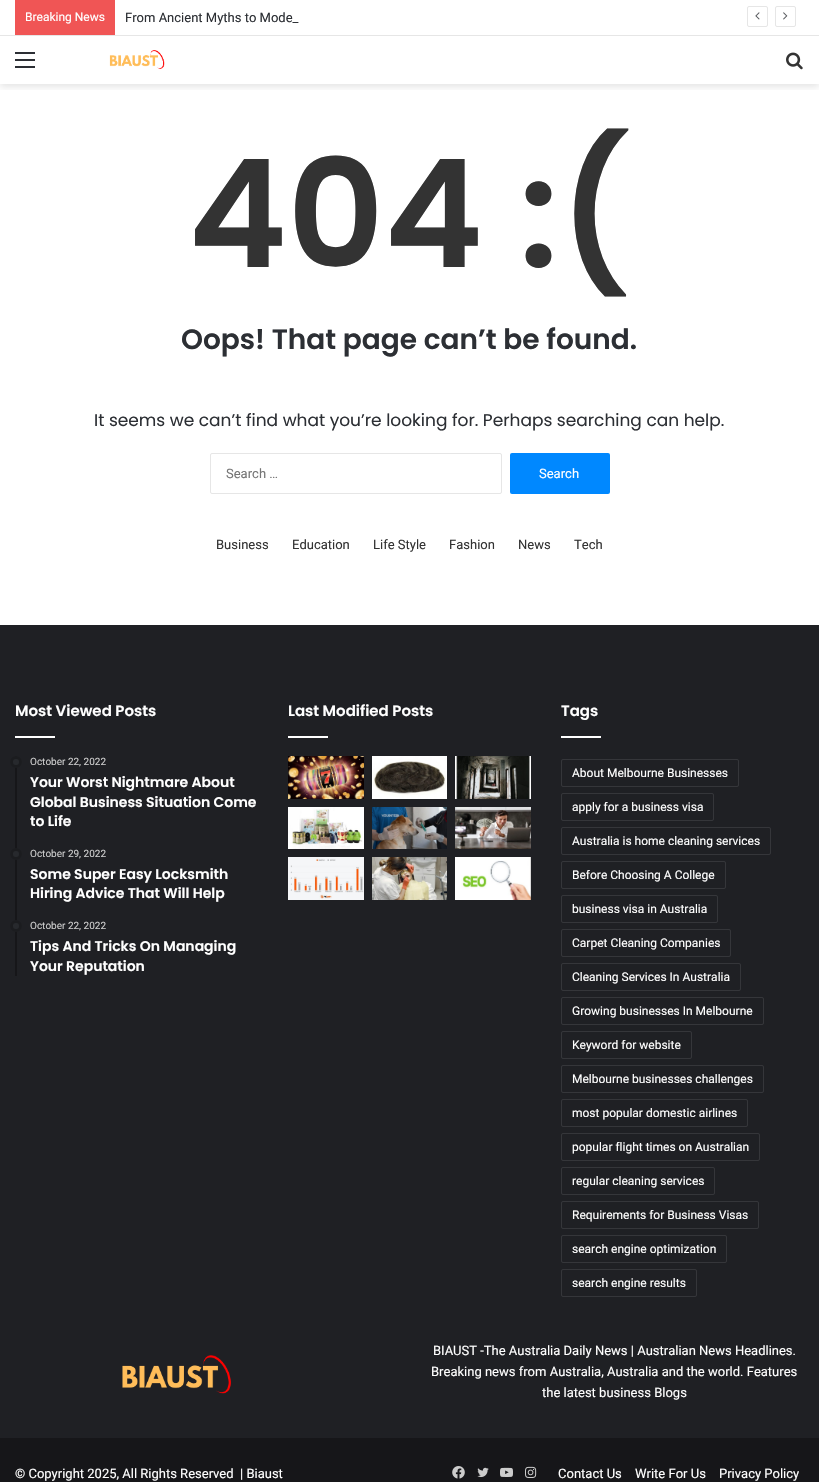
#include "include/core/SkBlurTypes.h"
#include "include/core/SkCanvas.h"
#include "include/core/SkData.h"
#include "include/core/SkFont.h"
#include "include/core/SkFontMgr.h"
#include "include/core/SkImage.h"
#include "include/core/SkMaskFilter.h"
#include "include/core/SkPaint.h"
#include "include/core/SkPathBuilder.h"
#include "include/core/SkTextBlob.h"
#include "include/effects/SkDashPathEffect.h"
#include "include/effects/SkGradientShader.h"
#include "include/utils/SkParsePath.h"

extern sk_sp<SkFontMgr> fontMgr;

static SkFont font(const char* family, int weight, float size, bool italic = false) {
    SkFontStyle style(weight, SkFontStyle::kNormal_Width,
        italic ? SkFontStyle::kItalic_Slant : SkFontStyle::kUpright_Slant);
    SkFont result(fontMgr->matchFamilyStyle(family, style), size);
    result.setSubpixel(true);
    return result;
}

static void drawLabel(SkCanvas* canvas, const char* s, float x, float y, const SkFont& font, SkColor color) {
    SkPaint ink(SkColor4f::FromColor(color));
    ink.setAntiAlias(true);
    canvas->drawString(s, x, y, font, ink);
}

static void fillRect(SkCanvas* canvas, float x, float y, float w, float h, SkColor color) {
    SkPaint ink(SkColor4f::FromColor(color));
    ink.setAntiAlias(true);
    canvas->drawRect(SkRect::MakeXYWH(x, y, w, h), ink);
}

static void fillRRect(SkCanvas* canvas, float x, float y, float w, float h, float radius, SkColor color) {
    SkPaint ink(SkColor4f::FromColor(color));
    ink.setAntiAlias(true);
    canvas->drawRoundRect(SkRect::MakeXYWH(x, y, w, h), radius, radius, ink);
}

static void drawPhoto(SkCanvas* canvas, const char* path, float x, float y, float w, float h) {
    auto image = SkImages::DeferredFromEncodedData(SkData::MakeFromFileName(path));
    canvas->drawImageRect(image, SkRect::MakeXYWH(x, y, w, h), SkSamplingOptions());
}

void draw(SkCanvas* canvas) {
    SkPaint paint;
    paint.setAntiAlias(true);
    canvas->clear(0xFFFFFFFF);
    canvas->save();
    canvas->clipRect(SkRect::MakeXYWH(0, 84, 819, 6));
    paint.setColor(0x1A000000);
    paint.setMaskFilter(SkMaskFilter::MakeBlur(kNormal_SkBlurStyle, 3.5f));
    canvas->drawRect(SkRect::MakeXYWH(0, 39, 819, 48), paint);
    paint.setMaskFilter(nullptr);
    canvas->restore();
    fillRect(canvas, 0, 35, 819, 1, 0xFFE6E6E6);
    fillRect(canvas, 15, 0, 100, 35, 0xFFF05555);
    SkFont font1 = font("Roboto", 400, 12);
    drawLabel(canvas, "Breaking News", 25, 21, font1, 0xFFFFFFFF);
    SkFont font2 = font("Roboto", 400, 13);
    drawLabel(canvas, "From Ancient Myths to Mode_", 125, 22, font2, 0xFF2C2F34);
    paint.setStroke(true);
    paint.setStrokeWidth(1);
    paint.setColor(0xFFE6E6E6);
    canvas->drawRoundRect(SkRect::MakeXYWH(747.5f, 6.5f, 20, 20), 1.5f, 1.5f, paint);
    drawPhoto(canvas, "assets/img1.png", 755, 12, 5, 8);
    canvas->drawRoundRect(SkRect::MakeXYWH(775.5f, 6.5f, 20, 20), 1.5f, 1.5f, paint);
    drawPhoto(canvas, "assets/img2.png", 783, 12, 5, 8);
    fillRect(canvas, 15, 59, 20, 2, 0xFF2C2F34);
    fillRect(canvas, 15, 52, 20, 2, 0xFF2C2F34);
    fillRect(canvas, 15, 66, 20, 2, 0xFF2C2F34);
    drawPhoto(canvas, "assets/img3.png", 109, 50, 56, 19);
    drawPhoto(canvas, "assets/img4.png", 786, 52, 17, 18);
    SkFont font3 = font("Poppins", 600, 150);
    drawLabel(canvas, "404 :(", 188, 267, font3, 0xFF333333);
    SkFont font4 = font("Poppins", 600, 28);
    drawLabel(canvas, "Oops! That page can’t be found.", 181, 349, font4, 0xFF2C2F34);
    SkFont font5 = font("Poppins", 400, 17);
    drawLabel(canvas, "It seems we can’t find what you’re looking for. Perhaps searching can help.", 94, 426, font5, 0xFF2C2F34);
    canvas->drawRoundRect(SkRect::MakeXYWH(210.5f, 453.5f, 291, 40), 1.5f, 1.5f, paint);
    drawLabel(canvas, "Search …", 226, 478, font2, 0xFF757575);
    fillRRect(canvas, 510, 453, 100, 41, 2, 0xFF0088FF);
    drawLabel(canvas, "Search", 539, 478, font2, 0xFFFFFFFF);
    drawLabel(canvas, "Business", 216, 549, font2, 0xFF333333);
    drawLabel(canvas, "Education", 292, 549, font2, 0xFF333333);
    drawLabel(canvas, "Life Style", 373, 549, font2, 0xFF333333);
    drawLabel(canvas, "Fashion", 449, 549, font2, 0xFF333333);
    drawLabel(canvas, "News", 518, 549, font2, 0xFF333333);
    drawLabel(canvas, "Tech", 574, 549, font2, 0xFF333333);
    fillRect(canvas, 0, 625, 819, 813, 0xFF1F2024);
    SkFont font6 = font("Poppins", 600, 15);
    drawLabel(canvas, "Most Viewed Posts", 15, 716, font6, 0xFFFFFFFF);
    fillRect(canvas, 15, 736, 40, 2, 0xFFFFFFFF);
    fillRect(canvas, 15, 756, 2, 220, 0xFF161619);
    paint.setStroke(false);
    paint.setColor(0xFF27292D);
    canvas->drawCircle(16, 762, 4.5f, paint);
    paint.setStroke(true);
    paint.setStrokeWidth(3);
    paint.setColor(0xFF1B1C1F);
    canvas->drawCircle(16, 762, 4.5f, paint);
    SkFont font7 = font("Roboto", 400, 10);
    drawLabel(canvas, "October 22, 2022", 30, 765, font7, 0xFFCCCCCC);
    SkFont font8 = font("Poppins", 600, 14);
    drawLabel(canvas, "Your Worst Nightmare About", 30, 787, font8, 0xFFFFFFFF);
    drawLabel(canvas, "Global Business Situation Come", 30, 807, font8, 0xFFFFFFFF);
    drawLabel(canvas, "to Life", 30, 826, font8, 0xFFFFFFFF);
    paint.setStroke(false);
    paint.setColor(0xFF27292D);
    canvas->drawCircle(16, 854, 4.5f, paint);
    paint.setStroke(true);
    paint.setColor(0xFF1B1C1F);
    canvas->drawCircle(16, 854, 4.5f, paint);
    drawLabel(canvas, "October 29, 2022", 30, 857, font7, 0xFFCCCCCC);
    drawLabel(canvas, "Some Super Easy Locksmith", 30, 879, font8, 0xFFFFFFFF);
    drawLabel(canvas, "Hiring Advice That Will Help", 30, 898, font8, 0xFFFFFFFF);
    paint.setStroke(false);
    paint.setColor(0xFF27292D);
    canvas->drawCircle(16, 926, 4.5f, paint);
    paint.setStroke(true);
    paint.setColor(0xFF1B1C1F);
    canvas->drawCircle(16, 926, 4.5f, paint);
    drawLabel(canvas, "October 22, 2022", 30, 929, font7, 0xFFCCCCCC);
    drawLabel(canvas, "Tips And Tricks On Managing", 30, 951, font8, 0xFFFFFFFF);
    drawLabel(canvas, "Your Reputation", 30, 971, font8, 0xFFFFFFFF);
    drawLabel(canvas, "Last Modified Posts", 288, 716, font6, 0xFFFFFFFF);
    fillRect(canvas, 288, 736, 40, 2, 0xFFFFFFFF);
    drawPhoto(canvas, "assets/img5.png", 288, 756, 76, 43);
    drawPhoto(canvas, "assets/img6.png", 372, 756, 75, 43);
    drawPhoto(canvas, "assets/img7.png", 455, 756, 76, 43);
    drawPhoto(canvas, "assets/img8.png", 288, 807, 76, 42);
    drawPhoto(canvas, "assets/img9.png", 372, 807, 75, 42);
    drawPhoto(canvas, "assets/img10.png", 455, 807, 76, 42);
    drawPhoto(canvas, "assets/img11.png", 288, 857, 76, 43);
    drawPhoto(canvas, "assets/img12.png", 372, 857, 75, 43);
    drawPhoto(canvas, "assets/img13.png", 455, 857, 76, 43);
    drawLabel(canvas, "Tags", 561, 716, font6, 0xFFFFFFFF);
    fillRect(canvas, 561, 736, 40, 2, 0xFFFFFFFF);
    paint.setStrokeWidth(1);
    paint.setColor(0xFF35363A);
    canvas->drawRoundRect(SkRect::MakeXYWH(561.5f, 759.5f, 177, 27), 1.5f, 1.5f, paint);
    drawLabel(canvas, "About Melbourne Businesses", 572, 777, font1, 0xFFFFFFFF);
    canvas->drawRoundRect(SkRect::MakeXYWH(561.5f, 793.5f, 152, 27), 1.5f, 1.5f, paint);
    drawLabel(canvas, "apply for a business visa", 572, 811, font1, 0xFFFFFFFF);
    canvas->drawRoundRect(SkRect::MakeXYWH(561.5f, 827.5f, 209, 27), 1.5f, 1.5f, paint);
    drawLabel(canvas, "Australia is home cleaning services", 572, 845, font1, 0xFFFFFFFF);
    canvas->drawRoundRect(SkRect::MakeXYWH(561.5f, 861.5f, 164, 27), 1.5f, 1.5f, paint);
    drawLabel(canvas, "Before Choosing A College", 572, 879, font1, 0xFFFFFFFF);
    canvas->drawRoundRect(SkRect::MakeXYWH(561.5f, 895.5f, 156, 27), 1.5f, 1.5f, paint);
    drawLabel(canvas, "business visa in Australia", 572, 913, font1, 0xFFFFFFFF);
    canvas->drawRoundRect(SkRect::MakeXYWH(561.5f, 929.5f, 169, 27), 1.5f, 1.5f, paint);
    drawLabel(canvas, "Carpet Cleaning Companies", 572, 947, font1, 0xFFFFFFFF);
    canvas->drawRoundRect(SkRect::MakeXYWH(561.5f, 963.5f, 179, 27), 1.5f, 1.5f, paint);
    drawLabel(canvas, "Cleaning Services In Australia", 572, 981, font1, 0xFFFFFFFF);
    canvas->drawRoundRect(SkRect::MakeXYWH(561.5f, 997.5f, 202, 27), 1.5f, 1.5f, paint);
    drawLabel(canvas, "Growing businesses In Melbourne", 572, 1015, font1, 0xFFFFFFFF);
    canvas->drawRoundRect(SkRect::MakeXYWH(561.5f, 1031.5f, 130, 27), 1.5f, 1.5f, paint);
    drawLabel(canvas, "Keyword for website", 572, 1049, font1, 0xFFFFFFFF);
    canvas->drawRoundRect(SkRect::MakeXYWH(561.5f, 1065.5f, 202, 27), 1.5f, 1.5f, paint);
    drawLabel(canvas, "Melbourne businesses challenges", 572, 1083, font1, 0xFFFFFFFF);
    canvas->drawRoundRect(SkRect::MakeXYWH(561.5f, 1099.5f, 186, 27), 1.5f, 1.5f, paint);
    drawLabel(canvas, "most popular domestic airlines", 572, 1117, font1, 0xFFFFFFFF);
    canvas->drawRoundRect(SkRect::MakeXYWH(561.5f, 1133.5f, 198, 27), 1.5f, 1.5f, paint);
    drawLabel(canvas, "popular flight times on Australian", 572, 1151, font1, 0xFFFFFFFF);
    canvas->drawRoundRect(SkRect::MakeXYWH(561.5f, 1167.5f, 153, 27), 1.5f, 1.5f, paint);
    drawLabel(canvas, "regular cleaning services", 572, 1185, font1, 0xFFFFFFFF);
    canvas->drawRoundRect(SkRect::MakeXYWH(561.5f, 1201.5f, 197, 27), 1.5f, 1.5f, paint);
    drawLabel(canvas, "Requirements for Business Visas", 572, 1219, font1, 0xFFFFFFFF);
    canvas->drawRoundRect(SkRect::MakeXYWH(561.5f, 1235.5f, 165, 27), 1.5f, 1.5f, paint);
    drawLabel(canvas, "search engine optimization", 572, 1253, font1, 0xFFFFFFFF);
    canvas->drawRoundRect(SkRect::MakeXYWH(561.5f, 1269.5f, 135, 27), 1.5f, 1.5f, paint);
    drawLabel(canvas, "search engine results", 572, 1287, font1, 0xFFFFFFFF);
    drawPhoto(canvas, "assets/img14.png", 122, 1355, 109, 39);
    drawLabel(canvas, "BIAUST -The Australia Daily News | Australian News Headlines.", 433, 1355, font2, 0xFFFFFFFF);
    drawLabel(canvas, "Breaking news from Australia, Australia and the world. Features", 431, 1376, font2, 0xFFFFFFFF);
    drawLabel(canvas, "the latest business Blogs", 542, 1397, font2, 0xFFFFFFFF);
    fillRect(canvas, 0, 1438, 819, 44, 0xFF161619);
    drawLabel(canvas, "© Copyright 2025, All Rights Reserved  | Biaust", 15, 1478, font2, 0xFFFFFFFF);
    drawPhoto(canvas, "assets/img15.png", 452, 1466, 13, 13);
    drawPhoto(canvas, "assets/img16.png", 477, 1467, 12, 11);
    drawPhoto(canvas, "assets/img17.png", 500, 1467, 13, 10);
    drawPhoto(canvas, "assets/img18.png", 525, 1466, 12, 12);
    drawLabel(canvas, "Contact Us", 558, 1478, font2, 0xFFFFFFFF);
    drawLabel(canvas, "Write For Us", 635, 1478, font2, 0xFFFFFFFF);
    drawLabel(canvas, "Privacy Policy", 719, 1478, font2, 0xFFFFFFFF);
}
